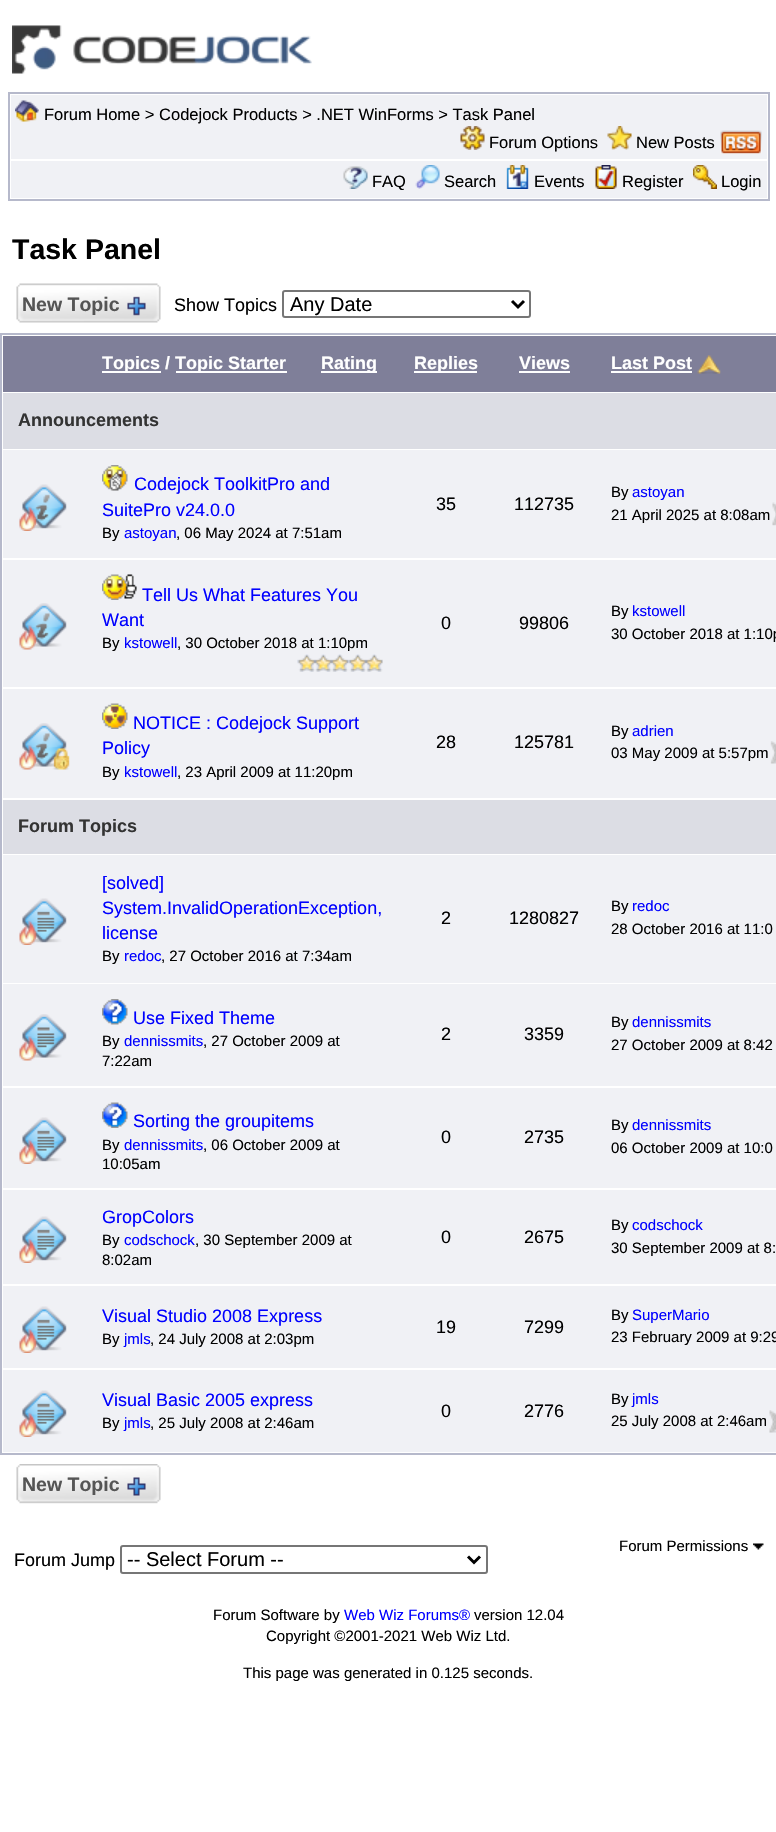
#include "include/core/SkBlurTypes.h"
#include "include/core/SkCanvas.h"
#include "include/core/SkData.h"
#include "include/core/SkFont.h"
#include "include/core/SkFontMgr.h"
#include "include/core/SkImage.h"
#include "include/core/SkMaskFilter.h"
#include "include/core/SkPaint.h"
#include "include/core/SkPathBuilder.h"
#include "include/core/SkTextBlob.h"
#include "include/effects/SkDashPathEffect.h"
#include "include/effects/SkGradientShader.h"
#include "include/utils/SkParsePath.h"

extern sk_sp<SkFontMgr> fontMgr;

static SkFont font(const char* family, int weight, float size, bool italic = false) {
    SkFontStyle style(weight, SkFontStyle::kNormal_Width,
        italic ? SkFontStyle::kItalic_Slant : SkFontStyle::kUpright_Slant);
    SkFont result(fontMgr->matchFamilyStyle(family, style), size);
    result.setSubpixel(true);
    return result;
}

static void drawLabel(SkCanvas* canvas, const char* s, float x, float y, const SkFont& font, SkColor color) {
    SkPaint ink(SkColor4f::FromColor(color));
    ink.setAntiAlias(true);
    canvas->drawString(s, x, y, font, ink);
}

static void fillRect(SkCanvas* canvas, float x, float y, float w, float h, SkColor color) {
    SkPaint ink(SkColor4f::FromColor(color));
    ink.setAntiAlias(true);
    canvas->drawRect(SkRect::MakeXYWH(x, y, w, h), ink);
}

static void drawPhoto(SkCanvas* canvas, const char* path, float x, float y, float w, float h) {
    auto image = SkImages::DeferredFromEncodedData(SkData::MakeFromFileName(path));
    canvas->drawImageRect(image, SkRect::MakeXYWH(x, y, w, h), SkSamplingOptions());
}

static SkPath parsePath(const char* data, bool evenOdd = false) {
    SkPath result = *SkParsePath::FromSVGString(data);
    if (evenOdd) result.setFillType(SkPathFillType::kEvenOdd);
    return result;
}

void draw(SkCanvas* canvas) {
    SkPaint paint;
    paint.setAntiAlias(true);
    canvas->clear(0xFFFFFFFF);
    drawPhoto(canvas, "assets/img1.png", 12, 25, 300, 49);
    paint.setStroke(true);
    paint.setStrokeWidth(2);
    paint.setColor(0xFFB6B9CB);
    canvas->drawRect(SkRect::MakeXYWH(9, 93, 760, 107), paint);
    fillRect(canvas, 11, 95, 756, 64, 0xFFF0F1F5);
    drawPhoto(canvas, "assets/img2.png", 15, 100, 24, 22);
    SkFont font1 = font("Liberation Sans", 400, 16.5f);
    drawLabel(canvas, "Forum Home > Codejock Products > .NET WinForms > Task Panel", 44, 120, font1, 0xFF000000);
    drawPhoto(canvas, "assets/img3.png", 460, 126, 25, 24);
    drawLabel(canvas, "Forum Options", 489, 148, font1, 0xFF000000);
    drawPhoto(canvas, "assets/img4.png", 607, 126, 25, 24);
    drawLabel(canvas, "New Posts", 636, 148, font1, 0xFF000000);
    drawPhoto(canvas, "assets/img5.png", 720, 130, 42, 24);
    fillRect(canvas, 11, 161, 756, 37, 0xFFF0F1F5);
    drawPhoto(canvas, "assets/img6.png", 343, 166, 25, 23);
    drawLabel(canvas, "FAQ", 372, 187, font1, 0xFF000000);
    drawPhoto(canvas, "assets/img7.png", 415, 165, 25, 24);
    drawLabel(canvas, "Search", 444, 187, font1, 0xFF000000);
    drawPhoto(canvas, "assets/img8.png", 506, 165, 23, 24);
    drawLabel(canvas, "Events", 534, 187, font1, 0xFF000000);
    drawPhoto(canvas, "assets/img9.png", 595, 165, 22, 24);
    drawLabel(canvas, "Register", 622, 187, font1, 0xFF000000);
    drawPhoto(canvas, "assets/img10.png", 693, 165, 24, 24);
    drawLabel(canvas, "Login", 721, 187, font1, 0xFF000000);
    SkFont font2 = font("Liberation Sans", 700, 28.5f);
    drawLabel(canvas, "Task Panel", 12, 259, font2, 0xFF000000);
    drawPhoto(canvas, "assets/img11.png", 16, 283, 145, 40);
    SkFont font3 = font("Liberation Sans", 700, 19.5f);
    drawLabel(canvas, "New Topic", 22, 311, font3, 0xFF555555);
    drawPhoto(canvas, "assets/img12.png", 127, 296, 19, 20);
    SkFont font4 = font("Liberation Sans", 400, 18);
    drawLabel(canvas, "Show Topics", 174, 311, font4, 0xFF000000);
    paint.setColor(0xFF767676);
    canvas->drawRoundRect(SkRect::MakeXYWH(283, 291, 247, 26), 2, 2, paint);
    paint.setStrokeWidth(3);
    paint.setColor(0xFF000000);
    canvas->drawPath(parsePath("M512 301L518 307L524 301"), paint);
    SkFont font5 = font("Liberation Sans", 400, 20);
    drawLabel(canvas, "Any Date", 290, 311, font5, 0xFF000000);
    paint.setStrokeWidth(2);
    paint.setColor(0xFFB6B9CB);
    canvas->drawRect(SkRect::MakeXYWH(1, 334, 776, 1120), paint);
    fillRect(canvas, 3, 336, 773, 56, 0xFF7F7F99);
    fillRect(canvas, 102, 371, 59, 2, 0xFFFFFFFF);
    SkFont font6 = font("Liberation Sans", 700, 18);
    drawLabel(canvas, "Topics /", 102, 369, font6, 0xFFFFFFFF);
    fillRect(canvas, 176, 371, 111, 2, 0xFFFFFFFF);
    drawLabel(canvas, "Topic Starter", 175, 369, font6, 0xFFFFFFFF);
    fillRect(canvas, 321, 371, 56, 2, 0xFFFFFFFF);
    drawLabel(canvas, "Rating", 321, 369, font6, 0xFFFFFFFF);
    fillRect(canvas, 414, 371, 63, 2, 0xFFFFFFFF);
    drawLabel(canvas, "Replies", 414, 369, font6, 0xFFFFFFFF);
    drawLabel(canvas, "Views", 519, 369, font6, 0xFFFFFFFF);
    fillRect(canvas, 519, 371, 51, 2, 0xFFFFFFFF);
    drawLabel(canvas, "Last Post", 611, 369, font6, 0xFFFFFFFF);
    fillRect(canvas, 611, 371, 81, 2, 0xFFFFFFFF);
    drawPhoto(canvas, "assets/img13.png", 697, 355, 24, 19);
    fillRect(canvas, 3, 393, 773, 56, 0xFFDCDDE4);
    drawLabel(canvas, "Announcements", 18, 426, font6, 0xFF333333);
    fillRect(canvas, 3, 450, 773, 108, 0xFFF0F1F5);
    drawPhoto(canvas, "assets/img14.png", 22, 484, 45, 45);
    drawPhoto(canvas, "assets/img15.png", 19, 506, 18, 25);
    drawPhoto(canvas, "assets/img16.png", 102, 465, 26, 26);
    drawLabel(canvas, "Codejock ToolkitPro and", 134, 490, font4, 0xFF0000FF);
    drawLabel(canvas, "SuitePro v24.0.0", 102, 516, font4, 0xFF0000FF);
    SkFont font7 = font("Liberation Sans", 400, 15);
    drawLabel(canvas, "By", 102, 538, font7, 0xFF000000);
    drawLabel(canvas, "astoyan", 124, 538, font7, 0xFF0000FF);
    drawLabel(canvas, ", 06 May 2024 at 7:51am", 176, 538, font7, 0xFF000000);
    drawLabel(canvas, "35", 436, 510, font4, 0xFF000000);
    drawLabel(canvas, "112735", 514, 510, font4, 0xFF000000);
    drawLabel(canvas, "By", 611, 497, font7, 0xFF000000);
    drawLabel(canvas, "astoyan", 632, 497, font7, 0xFF0000FF);
    drawLabel(canvas, "21 April 2025 at 8:08am", 611, 520, font7, 0xFF000000);
    drawPhoto(canvas, "assets/img17.png", 772, 502, 4, 24);
    fillRect(canvas, 3, 560, 773, 127, 0xFFF0F1F5);
    drawPhoto(canvas, "assets/img18.png", 22, 603, 45, 44);
    drawPhoto(canvas, "assets/img19.png", 19, 625, 18, 25);
    drawPhoto(canvas, "assets/img20.png", 102, 574, 35, 26);
    drawLabel(canvas, "Tell Us What Features You", 142, 601, font4, 0xFF0000FF);
    drawLabel(canvas, "Want", 102, 626, font4, 0xFF0000FF);
    drawLabel(canvas, "By", 102, 648, font7, 0xFF000000);
    drawLabel(canvas, "kstowell", 124, 648, font7, 0xFF0000FF);
    drawLabel(canvas, ", 30 October 2018 at 1:10pm", 177, 648, font7, 0xFF000000);
    drawPhoto(canvas, "assets/img21.png", 297, 654, 86, 18);
    drawLabel(canvas, "0", 441, 629, font4, 0xFF000000);
    drawLabel(canvas, "99806", 519, 629, font4, 0xFF000000);
    drawLabel(canvas, "By", 611, 616, font7, 0xFF000000);
    drawLabel(canvas, "kstowell", 632, 616, font7, 0xFF0000FF);
    drawLabel(canvas, "30 October 2018 at 1:10p", 611, 639, font7, 0xFF000000);
    fillRect(canvas, 3, 689, 773, 109, 0xFFF0F1F5);
    drawPhoto(canvas, "assets/img18.png", 22, 723, 45, 44);
    drawPhoto(canvas, "assets/img22.png", 19, 745, 51, 25);
    drawPhoto(canvas, "assets/img23.png", 102, 703, 26, 26);
    drawLabel(canvas, "NOTICE : Codejock Support", 133, 729, font4, 0xFF0000FF);
    drawLabel(canvas, "Policy", 102, 754, font4, 0xFF0000FF);
    drawLabel(canvas, "By", 102, 777, font7, 0xFF000000);
    drawLabel(canvas, "kstowell", 124, 777, font7, 0xFF0000FF);
    drawLabel(canvas, ", 23 April 2009 at 11:20pm", 177, 777, font7, 0xFF000000);
    drawLabel(canvas, "28", 436, 748, font4, 0xFF000000);
    drawLabel(canvas, "125781", 514, 748, font4, 0xFF000000);
    drawLabel(canvas, "By", 611, 736, font7, 0xFF000000);
    drawLabel(canvas, "adrien", 632, 736, font7, 0xFF0000FF);
    drawLabel(canvas, "03 May 2009 at 5:57pm", 611, 758, font7, 0xFF000000);
    drawPhoto(canvas, "assets/img24.png", 770, 741, 6, 23);
    fillRect(canvas, 3, 800, 773, 54, 0xFFDCDDE4);
    drawLabel(canvas, "Forum Topics", 18, 832, font6, 0xFF333333);
    fillRect(canvas, 3, 855, 773, 128, 0xFFF0F1F5);
    drawPhoto(canvas, "assets/img25.png", 22, 898, 45, 45);
    drawPhoto(canvas, "assets/img26.png", 19, 920, 18, 25);
    drawLabel(canvas, "[solved]", 102, 889, font4, 0xFF0000FF);
    drawLabel(canvas, "System.InvalidOperationException,", 102, 914, font4, 0xFF0000FF);
    drawLabel(canvas, "license", 102, 939, font4, 0xFF0000FF);
    drawLabel(canvas, "By", 102, 961, font7, 0xFF000000);
    drawLabel(canvas, "redoc", 124, 961, font7, 0xFF0000FF);
    drawLabel(canvas, ", 27 October 2016 at 7:34am", 161, 961, font7, 0xFF000000);
    drawLabel(canvas, "2", 441, 924, font4, 0xFF000000);
    drawLabel(canvas, "1280827", 509, 924, font4, 0xFF000000);
    drawLabel(canvas, "By", 611, 911, font7, 0xFF000000);
    drawLabel(canvas, "redoc", 632, 911, font7, 0xFF0000FF);
    drawLabel(canvas, "28 October 2016 at 11:0", 611, 934, font7, 0xFF000000);
    fillRect(canvas, 3, 984, 773, 102, 0xFFF0F1F5);
    drawPhoto(canvas, "assets/img27.png", 22, 1014, 45, 44);
    drawPhoto(canvas, "assets/img28.png", 19, 1036, 18, 25);
    drawPhoto(canvas, "assets/img29.png", 102, 999, 26, 26);
    drawLabel(canvas, "Use Fixed Theme", 133, 1024, font4, 0xFF0000FF);
    drawLabel(canvas, "By", 102, 1046, font7, 0xFF000000);
    drawLabel(canvas, "dennissmits", 124, 1046, font7, 0xFF0000FF);
    drawLabel(canvas, ", 27 October 2009 at", 203, 1046, font7, 0xFF000000);
    drawLabel(canvas, "7:22am", 102, 1066, font7, 0xFF000000);
    drawLabel(canvas, "2", 441, 1040, font4, 0xFF000000);
    drawLabel(canvas, "3359", 524, 1040, font4, 0xFF000000);
    drawLabel(canvas, "By", 611, 1027, font7, 0xFF000000);
    drawLabel(canvas, "dennissmits", 632, 1027, font7, 0xFF0000FF);
    drawLabel(canvas, "27 October 2009 at 8:42", 611, 1050, font7, 0xFF000000);
    fillRect(canvas, 3, 1088, 773, 100, 0xFFF0F1F5);
    drawPhoto(canvas, "assets/img25.png", 22, 1117, 45, 45);
    drawPhoto(canvas, "assets/img26.png", 19, 1139, 18, 25);
    drawPhoto(canvas, "assets/img30.png", 102, 1102, 26, 26);
    drawLabel(canvas, "Sorting the groupitems", 133, 1127, font4, 0xFF0000FF);
    drawLabel(canvas, "By", 102, 1150, font7, 0xFF000000);
    drawLabel(canvas, "dennissmits", 124, 1150, font7, 0xFF0000FF);
    drawLabel(canvas, ", 06 October 2009 at", 203, 1150, font7, 0xFF000000);
    drawLabel(canvas, "10:05am", 102, 1169, font7, 0xFF000000);
    drawLabel(canvas, "0", 441, 1143, font4, 0xFF000000);
    drawLabel(canvas, "2735", 524, 1143, font4, 0xFF000000);
    drawLabel(canvas, "By", 611, 1130, font7, 0xFF000000);
    drawLabel(canvas, "dennissmits", 632, 1130, font7, 0xFF0000FF);
    drawLabel(canvas, "06 October 2009 at 10:0", 611, 1153, font7, 0xFF000000);
    fillRect(canvas, 3, 1190, 773, 94, 0xFFF0F1F5);
    drawPhoto(canvas, "assets/img25.png", 22, 1216, 45, 45);
    drawPhoto(canvas, "assets/img26.png", 19, 1238, 18, 25);
    drawLabel(canvas, "GropColors", 102, 1223, font4, 0xFF0000FF);
    drawLabel(canvas, "By", 102, 1245, font7, 0xFF000000);
    drawLabel(canvas, "codschock", 124, 1245, font7, 0xFF0000FF);
    drawLabel(canvas, ", 30 September 2009 at", 195, 1245, font7, 0xFF000000);
    drawLabel(canvas, "8:02am", 102, 1265, font7, 0xFF000000);
    drawLabel(canvas, "0", 441, 1243, font4, 0xFF000000);
    drawLabel(canvas, "2675", 524, 1243, font4, 0xFF000000);
    drawLabel(canvas, "By", 611, 1230, font7, 0xFF000000);
    drawLabel(canvas, "codschock", 632, 1230, font7, 0xFF0000FF);
    drawLabel(canvas, "30 September 2009 at 8:", 611, 1253, font7, 0xFF000000);
    fillRect(canvas, 3, 1286, 773, 82, 0xFFF0F1F5);
    drawPhoto(canvas, "assets/img25.png", 22, 1306, 45, 45);
    drawPhoto(canvas, "assets/img26.png", 19, 1328, 18, 25);
    drawLabel(canvas, "Visual Studio 2008 Express", 102, 1322, font4, 0xFF0000FF);
    drawLabel(canvas, "By", 102, 1344, font7, 0xFF000000);
    drawLabel(canvas, "jmls", 124, 1344, font7, 0xFF0000FF);
    drawLabel(canvas, ", 24 July 2008 at 2:03pm", 150, 1344, font7, 0xFF000000);
    drawLabel(canvas, "19", 436, 1333, font4, 0xFF000000);
    drawLabel(canvas, "7299", 524, 1333, font4, 0xFF000000);
    drawLabel(canvas, "By", 611, 1320, font7, 0xFF000000);
    drawLabel(canvas, "SuperMario", 632, 1320, font7, 0xFF0000FF);
    drawLabel(canvas, "23 February 2009 at 9:29", 611, 1342, font7, 0xFF000000);
    fillRect(canvas, 3, 1370, 773, 82, 0xFFF0F1F5);
    drawPhoto(canvas, "assets/img25.png", 22, 1390, 45, 45);
    drawPhoto(canvas, "assets/img26.png", 19, 1412, 18, 25);
    drawLabel(canvas, "Visual Basic 2005 express", 102, 1406, font4, 0xFF0000FF);
    drawLabel(canvas, "By", 102, 1428, font7, 0xFF000000);
    drawLabel(canvas, "jmls", 124, 1428, font7, 0xFF0000FF);
    drawLabel(canvas, ", 25 July 2008 at 2:46am", 150, 1428, font7, 0xFF000000);
    drawLabel(canvas, "0", 441, 1417, font4, 0xFF000000);
    drawLabel(canvas, "2776", 524, 1417, font4, 0xFF000000);
    drawLabel(canvas, "By", 611, 1404, font7, 0xFF000000);
    drawLabel(canvas, "jmls", 632, 1404, font7, 0xFF0000FF);
    drawLabel(canvas, "25 July 2008 at 2:46am", 611, 1426, font7, 0xFF000000);
    drawPhoto(canvas, "assets/img31.png", 769, 1410, 7, 23);
    drawPhoto(canvas, "assets/img32.png", 16, 1464, 145, 40);
    drawLabel(canvas, "New Topic", 22, 1491, font3, 0xFF555555);
    drawPhoto(canvas, "assets/img33.png", 127, 1477, 19, 19);
    drawLabel(canvas, "Forum Permissions", 619, 1551, font7, 0xFF000000);
    drawPhoto(canvas, "assets/img34.png", 753, 1543, 11, 7);
    drawLabel(canvas, "Forum Jump", 14, 1566, font4, 0xFF000000);
    paint.setColor(0xFF767676);
    canvas->drawRoundRect(SkRect::MakeXYWH(121, 1546, 366, 27), 2, 2, paint);
    paint.setStrokeWidth(3);
    paint.setColor(0xFF000000);
    canvas->drawPath(parsePath("M468 1556.5L474 1562.5L480 1556.5"), paint);
    drawLabel(canvas, "-- Select Forum --", 127, 1566, font5, 0xFF000000);
    drawLabel(canvas, "Forum Software by", 213, 1620, font7, 0xFF000000);
    drawLabel(canvas, "Web Wiz Forums®", 344, 1620, font7, 0xFF0000FF);
    drawLabel(canvas, "version 12.04", 474, 1620, font7, 0xFF000000);
    drawLabel(canvas, "Copyright ©2001-2021 Web Wiz Ltd.", 266, 1641, font7, 0xFF000000);
    drawLabel(canvas, "This page was generated in 0.125 seconds.", 243, 1678, font7, 0xFF000000);
}
